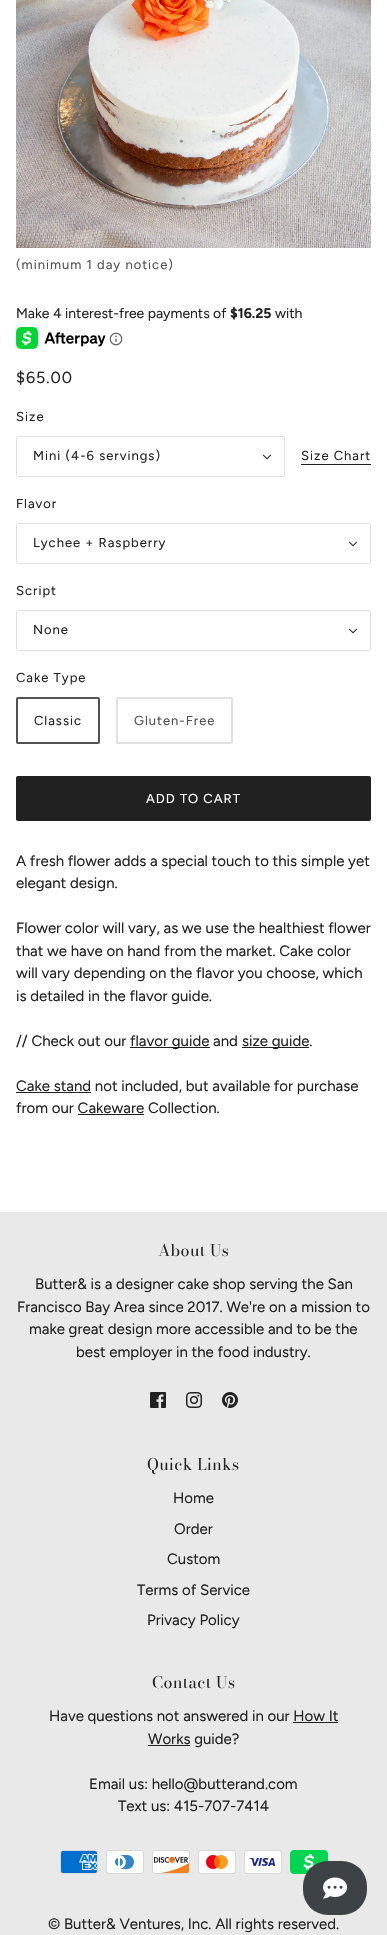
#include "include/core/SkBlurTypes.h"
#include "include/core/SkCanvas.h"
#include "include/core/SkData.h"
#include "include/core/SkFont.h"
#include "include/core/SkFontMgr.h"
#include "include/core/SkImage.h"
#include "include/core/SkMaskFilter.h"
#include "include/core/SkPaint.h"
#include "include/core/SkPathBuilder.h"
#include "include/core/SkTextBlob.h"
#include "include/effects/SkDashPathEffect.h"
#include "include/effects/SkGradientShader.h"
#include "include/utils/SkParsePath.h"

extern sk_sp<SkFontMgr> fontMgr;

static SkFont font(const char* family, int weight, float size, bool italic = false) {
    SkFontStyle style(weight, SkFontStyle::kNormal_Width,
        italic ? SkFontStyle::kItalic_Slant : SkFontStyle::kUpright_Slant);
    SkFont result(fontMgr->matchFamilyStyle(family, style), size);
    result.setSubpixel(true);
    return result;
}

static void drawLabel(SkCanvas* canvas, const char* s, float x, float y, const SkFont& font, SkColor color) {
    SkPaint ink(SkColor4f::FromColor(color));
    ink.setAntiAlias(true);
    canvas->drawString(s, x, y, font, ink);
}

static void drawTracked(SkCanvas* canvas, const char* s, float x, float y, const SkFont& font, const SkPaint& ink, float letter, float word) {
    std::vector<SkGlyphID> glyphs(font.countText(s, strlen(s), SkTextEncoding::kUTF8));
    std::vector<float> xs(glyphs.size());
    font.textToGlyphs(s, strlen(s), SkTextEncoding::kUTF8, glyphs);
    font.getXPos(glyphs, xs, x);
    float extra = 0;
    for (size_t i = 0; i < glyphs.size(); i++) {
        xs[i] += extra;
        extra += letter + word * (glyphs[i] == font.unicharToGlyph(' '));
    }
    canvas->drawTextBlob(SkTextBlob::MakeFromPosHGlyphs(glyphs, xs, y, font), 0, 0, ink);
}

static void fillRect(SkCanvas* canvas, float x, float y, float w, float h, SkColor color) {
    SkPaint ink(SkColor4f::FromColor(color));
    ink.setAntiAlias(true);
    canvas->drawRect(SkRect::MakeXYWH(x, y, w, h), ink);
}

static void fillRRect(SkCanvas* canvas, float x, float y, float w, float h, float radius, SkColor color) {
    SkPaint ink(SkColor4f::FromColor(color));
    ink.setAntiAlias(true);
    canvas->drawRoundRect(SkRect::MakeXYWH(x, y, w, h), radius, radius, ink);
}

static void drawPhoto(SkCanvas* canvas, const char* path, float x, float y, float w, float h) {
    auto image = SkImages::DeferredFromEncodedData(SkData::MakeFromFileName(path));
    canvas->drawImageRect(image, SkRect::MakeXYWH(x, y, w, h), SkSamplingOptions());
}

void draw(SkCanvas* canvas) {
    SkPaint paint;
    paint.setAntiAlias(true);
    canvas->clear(0xFFFFFFFF);
    drawPhoto(canvas, "assets/img1.png", 16, 0, 355, 248);
    SkFont font1 = font("Figtree", 400, 13);
    paint.setColor(0xFF515151);
    drawTracked(canvas, "(minimum 1 day notice)", 16, 269, font1, paint, 1, 0);
    SkFont font2 = font("Figtree", 400, 14);
    drawLabel(canvas, "Make 4 interest-free payments of", 16, 318, font2, 0xFF212121);
    SkFont font3 = font("Figtree", 700, 14);
    drawLabel(canvas, "$16.25", 230, 318, font3, 0xFF212121);
    drawLabel(canvas, "with", 275, 318, font2, 0xFF212121);
    drawPhoto(canvas, "assets/img2.png", 16, 327, 90, 22);
    drawPhoto(canvas, "assets/img3.png", 109, 332, 14, 14);
    SkFont font4 = font("Figtree", 400, 16);
    paint.setColor(0xFF212121);
    drawTracked(canvas, "$65.00", 16, 383, font4, paint, 1, 0);
    drawTracked(canvas, "Size", 16, 421, font1, paint, 1, 0);
    paint.setStroke(true);
    paint.setStrokeWidth(1);
    paint.setColor(0xFFE0E0E0);
    canvas->drawRoundRect(SkRect::MakeXYWH(16.5f, 436.5f, 268, 40), 1.5f, 1.5f, paint);
    paint.setStroke(false);
    paint.setColor(0xFF212121);
    drawTracked(canvas, "Mini (4-6 servings)", 33, 460, font1, paint, 1, 0);
    drawPhoto(canvas, "assets/img4.png", 262, 454, 10, 6);
    drawTracked(canvas, "Size Chart", 301, 460, font1, paint, 1, 0);
    fillRect(canvas, 301, 464, 70, 1, 0xFF212121);
    drawTracked(canvas, "Flavor", 16, 508, font1, paint, 1, 0);
    paint.setStroke(true);
    paint.setColor(0xFFE0E0E0);
    canvas->drawRoundRect(SkRect::MakeXYWH(16.5f, 523.5f, 354, 40), 1.5f, 1.5f, paint);
    paint.setStroke(false);
    paint.setColor(0xFF212121);
    drawTracked(canvas, "Lychee + Raspberry", 33, 547, font1, paint, 1, 0);
    drawPhoto(canvas, "assets/img4.png", 348, 541, 10, 6);
    drawTracked(canvas, "Script", 16, 595, font1, paint, 1, 0);
    paint.setStroke(true);
    paint.setColor(0xFFE0E0E0);
    canvas->drawRoundRect(SkRect::MakeXYWH(16.5f, 610.5f, 354, 40), 1.5f, 1.5f, paint);
    paint.setStroke(false);
    paint.setColor(0xFF212121);
    drawTracked(canvas, "None", 33, 634, font1, paint, 1, 0);
    drawPhoto(canvas, "assets/img4.png", 348, 628, 10, 6);
    drawTracked(canvas, "Cake Type", 16, 682, font1, paint, 1, 0);
    paint.setStroke(true);
    paint.setStrokeWidth(2);
    paint.setColor(0xFF515151);
    canvas->drawRoundRect(SkRect::MakeXYWH(17, 698, 82, 45), 1, 1, paint);
    paint.setStroke(false);
    paint.setColor(0xFF212121);
    drawTracked(canvas, "Classic", 34, 725, font1, paint, 1, 0);
    paint.setStroke(true);
    paint.setColor(0xFFE0E0E0);
    canvas->drawRoundRect(SkRect::MakeXYWH(117, 698, 115, 45), 1, 1, paint);
    paint.setStroke(false);
    paint.setColor(0xFF515151);
    drawTracked(canvas, "Gluten-Free", 134, 725, font1, paint, 1, 0);
    fillRRect(canvas, 16, 776, 355, 45, 2, 0xFF212121);
    paint.setColor(0xFFFFFFFF);
    drawTracked(canvas, "ADD TO CART", 146, 803, font1, paint, 1, 0);
    SkFont font5 = font("Figtree", 400, 15);
    drawLabel(canvas, "A fresh flower adds a special touch to this simple yet", 16, 866, font5, 0xFF212121);
    drawLabel(canvas, "elegant design.", 16, 888, font5, 0xFF212121);
    drawLabel(canvas, "Flower color will vary, as we use the healthiest flower", 16, 933, font5, 0xFF212121);
    drawLabel(canvas, "that we have on hand from the market. Cake color", 16, 956, font5, 0xFF212121);
    drawLabel(canvas, "will vary depending on the flavor you choose, which", 16, 978, font5, 0xFF212121);
    drawLabel(canvas, "is detailed in the flavor guide.", 16, 1001, font5, 0xFF212121);
    drawLabel(canvas, "// Check out our", 16, 1046, font5, 0xFF212121);
    fillRect(canvas, 130, 1047, 80, 1, 0xFF212121);
    drawLabel(canvas, "flavor guide and", 130, 1046, font5, 0xFF212121);
    fillRect(canvas, 242, 1047, 67, 1, 0xFF212121);
    drawLabel(canvas, "size guide.", 242, 1046, font5, 0xFF212121);
    fillRect(canvas, 16, 1092, 75, 1, 0xFF212121);
    drawLabel(canvas, "Cake stand not included, but available for purchase", 16, 1091, font5, 0xFF212121);
    drawLabel(canvas, "from our Cakeware Collection.", 16, 1113, font5, 0xFF212121);
    fillRect(canvas, 78, 1114, 66, 1, 0xFF212121);
    fillRect(canvas, 0, 1212, 387, 723, 0xFFE9E9E9);
    SkFont font6 = font("Bodoni Moda", 400, 16);
    paint.setColor(0xFF212121);
    drawTracked(canvas, "About Us", 158, 1256, font6, paint, 0.4f, 0);
    drawLabel(canvas, "Butter& is a designer cake shop serving the San", 35, 1289, font5, 0xFF212121);
    drawLabel(canvas, "Francisco Bay Area since 2017. We're on a mission to", 17, 1312, font5, 0xFF212121);
    drawLabel(canvas, "make great design more accessible and to be the", 29, 1334, font5, 0xFF212121);
    drawLabel(canvas, "best employer in the food industry.", 76, 1357, font5, 0xFF212121);
    drawPhoto(canvas, "assets/img5.png", 150, 1392, 16, 16);
    drawPhoto(canvas, "assets/img6.png", 186, 1392, 16, 16);
    drawPhoto(canvas, "assets/img7.png", 222, 1392, 16, 16);
    drawTracked(canvas, "Quick Links", 147, 1470, font6, paint, 0.4f, 0);
    drawLabel(canvas, "Home", 173, 1503, font5, 0xFF212121);
    drawLabel(canvas, "Order", 174, 1534, font5, 0xFF212121);
    drawLabel(canvas, "Custom", 167, 1564, font5, 0xFF212121);
    drawLabel(canvas, "Terms of Service", 137, 1595, font5, 0xFF212121);
    drawLabel(canvas, "Privacy Policy", 147, 1625, font5, 0xFF212121);
    drawTracked(canvas, "Contact Us", 152, 1688, font6, paint, 0.4f, 0);
    drawLabel(canvas, "Have questions not answered in our How It", 49, 1721, font5, 0xFF212121);
    fillRect(canvas, 148, 1745, 42, 1, 0xFF212121);
    drawLabel(canvas, "Works guide?", 148, 1744, font5, 0xFF212121);
    fillRect(canvas, 293, 1722, 45, 1, 0xFF212121);
    drawLabel(canvas, "Email us: hello@butterand.com", 89, 1789, font5, 0xFF212121);
    drawLabel(canvas, "Text us: 415-707-7414", 118, 1811, font5, 0xFF212121);
    drawPhoto(canvas, "assets/img8.png", 60, 1850, 38, 24);
    drawPhoto(canvas, "assets/img9.png", 106, 1850, 38, 24);
    drawPhoto(canvas, "assets/img10.png", 152, 1850, 38, 24);
    drawPhoto(canvas, "assets/img11.png", 198, 1850, 38, 24);
    drawPhoto(canvas, "assets/img12.png", 244, 1850, 38, 24);
    drawPhoto(canvas, "assets/img13.png", 290, 1850, 38, 24);
    drawLabel(canvas, "© Butter& Ventures, Inc. All rights reserved.", 48, 1929, font5, 0xFF212121);
    fillRRect(canvas, 303, 1861, 64, 54, 25, 0xFF3D4246);
    drawPhoto(canvas, "assets/img14.png", 323, 1877, 24, 22);
}
